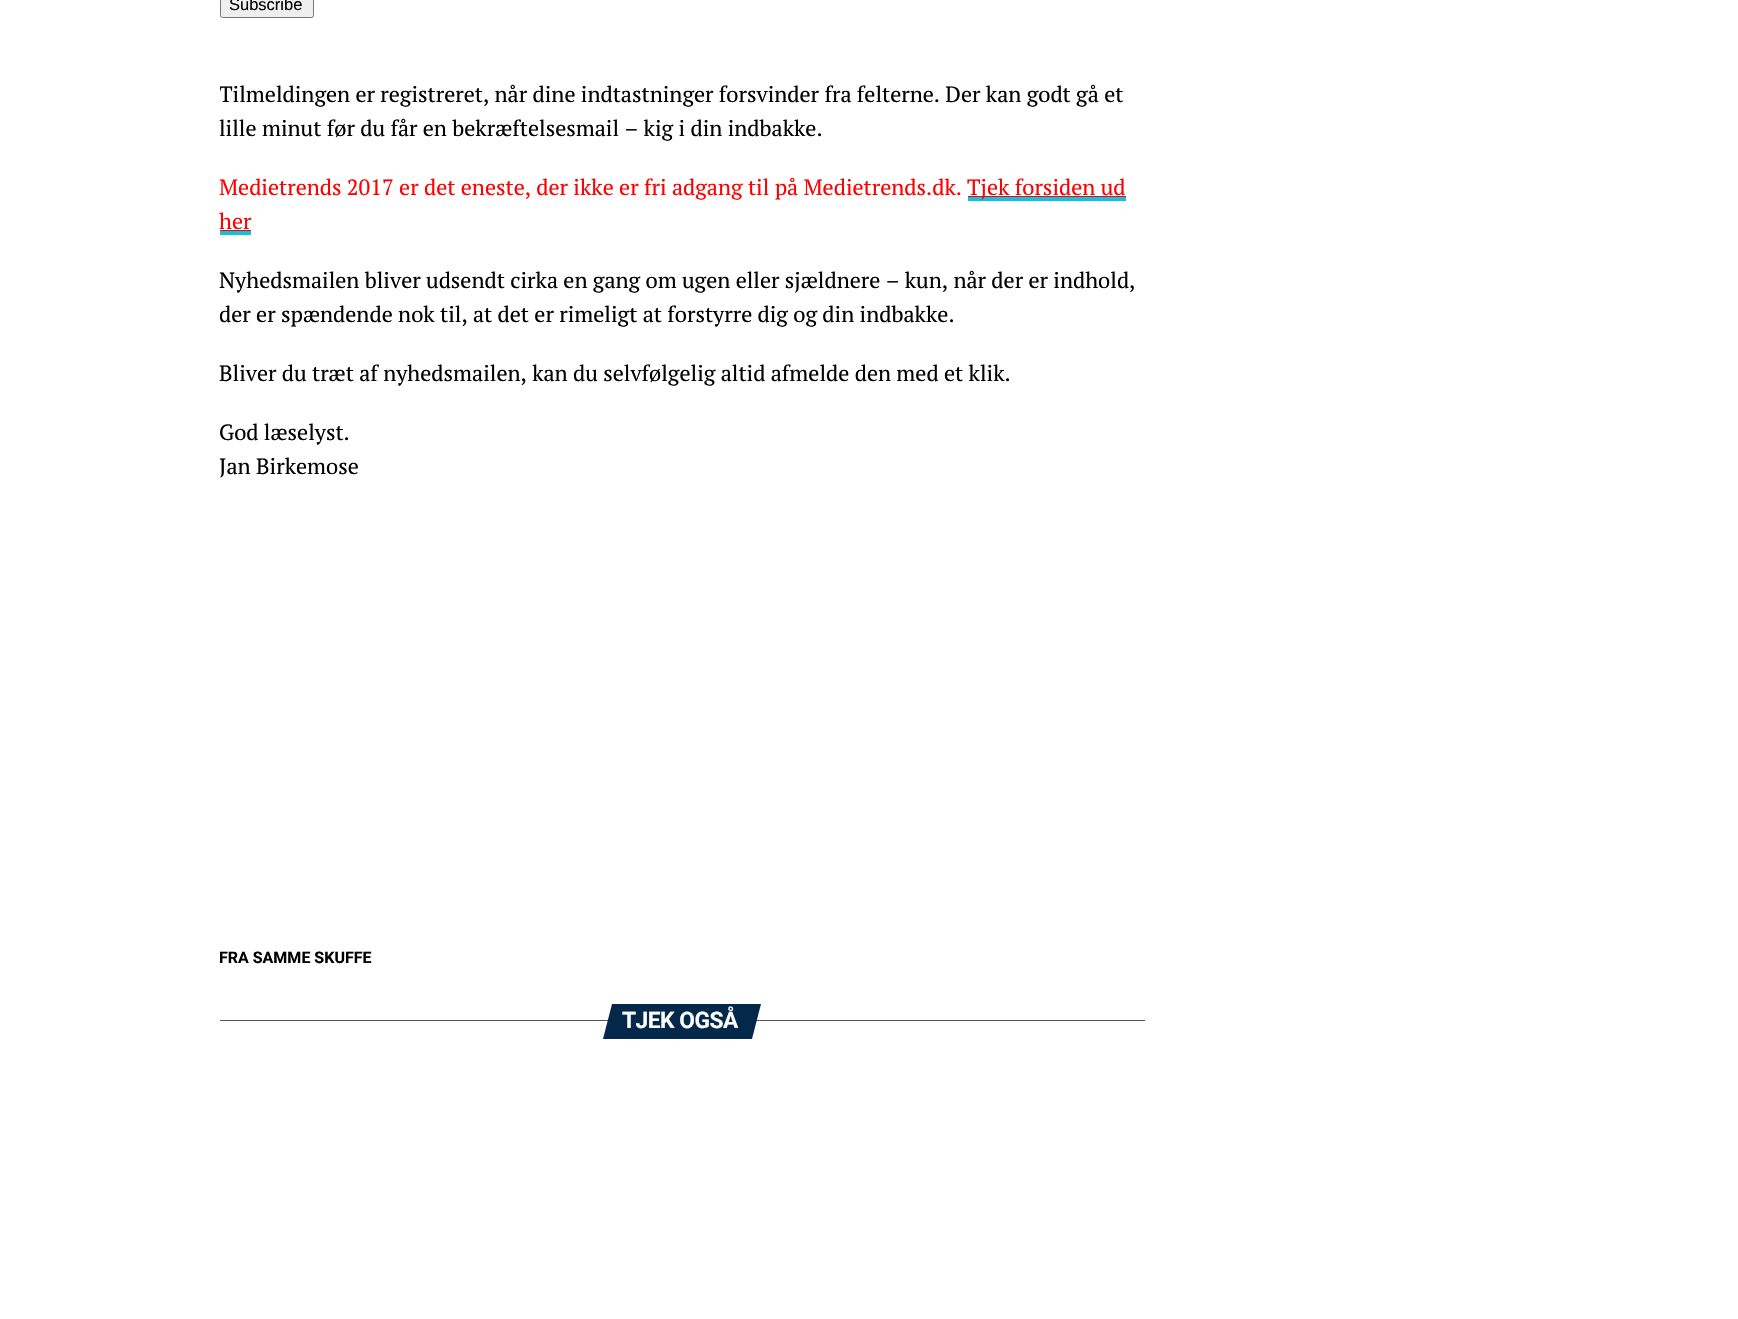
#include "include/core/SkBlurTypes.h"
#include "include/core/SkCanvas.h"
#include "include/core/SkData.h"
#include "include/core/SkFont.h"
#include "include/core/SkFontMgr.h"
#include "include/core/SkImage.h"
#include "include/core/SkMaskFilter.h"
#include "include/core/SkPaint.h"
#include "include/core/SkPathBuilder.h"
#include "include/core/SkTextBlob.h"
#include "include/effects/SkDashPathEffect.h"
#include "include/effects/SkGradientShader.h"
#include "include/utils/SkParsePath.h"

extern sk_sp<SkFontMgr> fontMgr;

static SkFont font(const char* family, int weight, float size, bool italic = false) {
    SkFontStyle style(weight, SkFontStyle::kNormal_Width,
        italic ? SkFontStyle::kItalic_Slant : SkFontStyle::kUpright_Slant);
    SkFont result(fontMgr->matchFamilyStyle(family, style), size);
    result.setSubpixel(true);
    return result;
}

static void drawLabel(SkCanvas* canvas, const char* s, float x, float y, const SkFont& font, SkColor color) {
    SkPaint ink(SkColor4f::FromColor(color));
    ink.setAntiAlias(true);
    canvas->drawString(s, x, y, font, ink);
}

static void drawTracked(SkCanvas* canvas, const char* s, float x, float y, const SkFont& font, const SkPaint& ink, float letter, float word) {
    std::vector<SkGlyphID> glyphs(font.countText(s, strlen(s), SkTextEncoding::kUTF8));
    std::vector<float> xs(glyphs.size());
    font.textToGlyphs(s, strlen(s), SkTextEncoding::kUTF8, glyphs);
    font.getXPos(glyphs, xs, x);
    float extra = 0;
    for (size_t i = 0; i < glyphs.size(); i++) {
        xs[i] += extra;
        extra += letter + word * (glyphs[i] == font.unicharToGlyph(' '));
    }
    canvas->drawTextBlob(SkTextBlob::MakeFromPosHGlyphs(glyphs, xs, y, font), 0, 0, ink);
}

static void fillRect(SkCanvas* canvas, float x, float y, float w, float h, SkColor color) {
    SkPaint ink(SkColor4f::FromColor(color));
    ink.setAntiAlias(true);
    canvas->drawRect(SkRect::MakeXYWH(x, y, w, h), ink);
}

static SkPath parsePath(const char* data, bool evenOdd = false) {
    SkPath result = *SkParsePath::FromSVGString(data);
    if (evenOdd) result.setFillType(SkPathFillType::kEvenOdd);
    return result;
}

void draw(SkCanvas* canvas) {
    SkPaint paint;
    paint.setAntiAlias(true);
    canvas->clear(0xFFFFFFFF);
    paint.setColor(0xFFEFEFEF);
    canvas->drawRoundRect(SkRect::MakeXYWH(220.5f, -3.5f, 93, 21), 2, 2, paint);
    paint.setStroke(true);
    paint.setStrokeWidth(1);
    paint.setColor(0xFF767676);
    canvas->drawRoundRect(SkRect::MakeXYWH(220.5f, -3.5f, 93, 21), 2, 2, paint);
    SkFont font1 = font("Liberation Sans", 400, 16.5f);
    drawLabel(canvas, "Subscribe", 229, 10, font1, 0xFF000000);
    canvas->save();
    canvas->clipRect(SkRect::MakeXYWH(220, 0, 925, 746));
    SkFont font2 = font("PT Serif", 400, 22);
    drawLabel(canvas, "Tilmeldingen er registreret, når dine indtastninger forsvinder fra felterne. Der kan godt gå et", 219, 102, font2, 0xFF000000);
    canvas->restore();
    drawLabel(canvas, "lille minut før du får en bekræftelsesmail – kig i din indbakke.", 219, 136, font2, 0xFF000000);
    drawLabel(canvas, "Medietrends 2017 er det eneste, der ikke er fri adgang til på Medietrends.dk.", 219, 195, font2, 0xFFFF0000);
    fillRect(canvas, 968, 197, 158, 4, 0xFF0CC5E6);
    fillRect(canvas, 968, 196, 158, 1, 0xFFFF0000);
    drawLabel(canvas, "Tjek forsiden ud", 967, 195, font2, 0xFFFF0000);
    drawLabel(canvas, "her", 219, 229, font2, 0xFFFF0000);
    fillRect(canvas, 220, 231, 31, 4, 0xFF0CC5E6);
    fillRect(canvas, 220, 230, 31, 1, 0xFFFF0000);
    drawLabel(canvas, "Nyhedsmailen bliver udsendt cirka en gang om ugen eller sjældnere – kun, når der er indhold,", 219, 288, font2, 0xFF000000);
    drawLabel(canvas, "der er spændende nok til, at det er rimeligt at forstyrre dig og din indbakke.", 219, 322, font2, 0xFF000000);
    drawLabel(canvas, "Bliver du træt af nyhedsmailen, kan du selvfølgelig altid afmelde den med et klik.", 219, 381, font2, 0xFF000000);
    drawLabel(canvas, "God læselyst.", 219, 440, font2, 0xFF000000);
    drawLabel(canvas, "Jan Birkemose", 219, 474, font2, 0xFF000000);
    SkFont font3 = font("Roboto", 700, 16);
    drawLabel(canvas, "FRA SAMME SKUFFE", 219, 963, font3, 0xFF000000);
    fillRect(canvas, 220, 1020, 925, 1, 0xFF555555);
    paint.setStroke(false);
    paint.setColor(0xFF04284A);
    canvas->drawPath(parsePath("M612 1004H761L752 1039H603Z"), paint);
    SkFont font4 = font("Roboto", 700, 22.75f);
    paint.setColor(0xFFFFFFFF);
    drawTracked(canvas, "TJEK OGSÅ", 622, 1028, font4, paint, -0.5f, 0);
}
